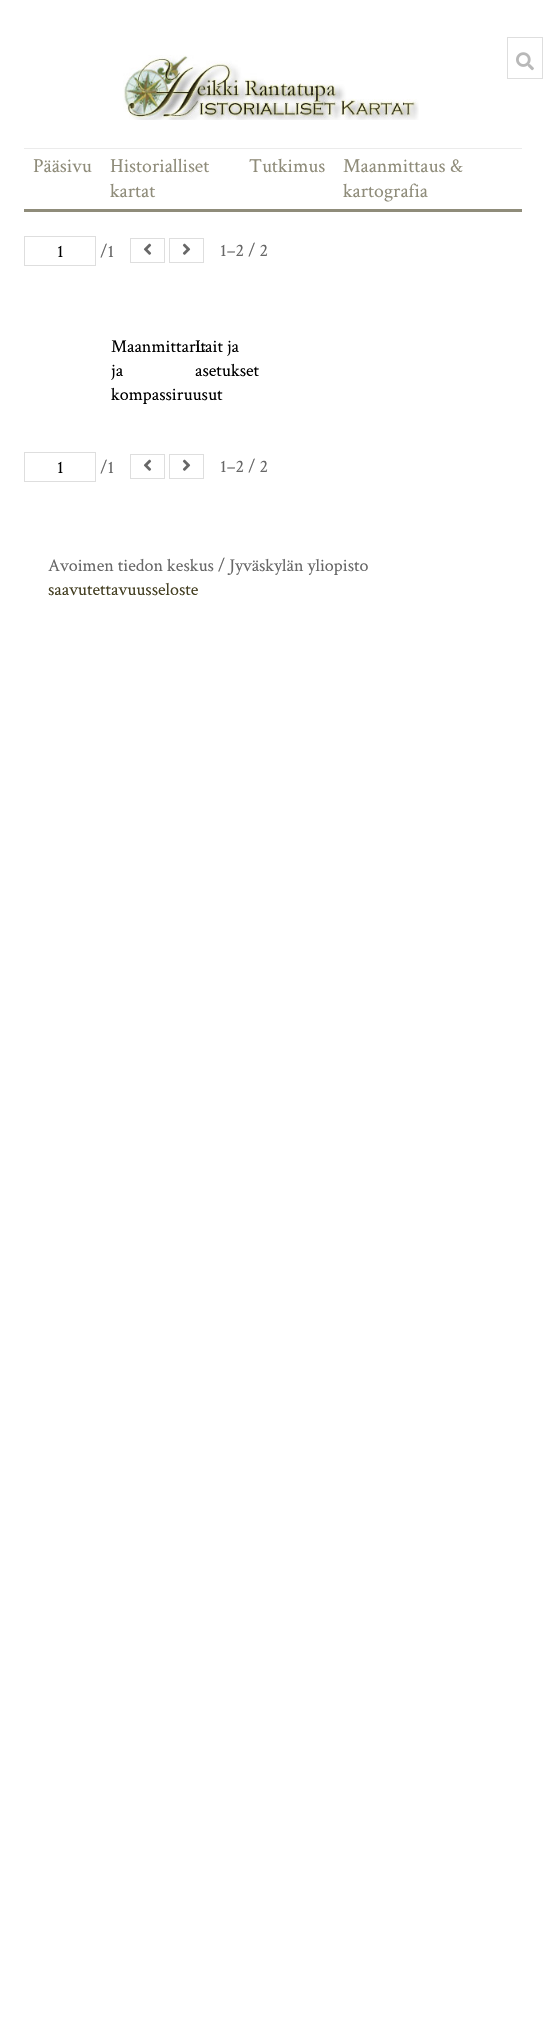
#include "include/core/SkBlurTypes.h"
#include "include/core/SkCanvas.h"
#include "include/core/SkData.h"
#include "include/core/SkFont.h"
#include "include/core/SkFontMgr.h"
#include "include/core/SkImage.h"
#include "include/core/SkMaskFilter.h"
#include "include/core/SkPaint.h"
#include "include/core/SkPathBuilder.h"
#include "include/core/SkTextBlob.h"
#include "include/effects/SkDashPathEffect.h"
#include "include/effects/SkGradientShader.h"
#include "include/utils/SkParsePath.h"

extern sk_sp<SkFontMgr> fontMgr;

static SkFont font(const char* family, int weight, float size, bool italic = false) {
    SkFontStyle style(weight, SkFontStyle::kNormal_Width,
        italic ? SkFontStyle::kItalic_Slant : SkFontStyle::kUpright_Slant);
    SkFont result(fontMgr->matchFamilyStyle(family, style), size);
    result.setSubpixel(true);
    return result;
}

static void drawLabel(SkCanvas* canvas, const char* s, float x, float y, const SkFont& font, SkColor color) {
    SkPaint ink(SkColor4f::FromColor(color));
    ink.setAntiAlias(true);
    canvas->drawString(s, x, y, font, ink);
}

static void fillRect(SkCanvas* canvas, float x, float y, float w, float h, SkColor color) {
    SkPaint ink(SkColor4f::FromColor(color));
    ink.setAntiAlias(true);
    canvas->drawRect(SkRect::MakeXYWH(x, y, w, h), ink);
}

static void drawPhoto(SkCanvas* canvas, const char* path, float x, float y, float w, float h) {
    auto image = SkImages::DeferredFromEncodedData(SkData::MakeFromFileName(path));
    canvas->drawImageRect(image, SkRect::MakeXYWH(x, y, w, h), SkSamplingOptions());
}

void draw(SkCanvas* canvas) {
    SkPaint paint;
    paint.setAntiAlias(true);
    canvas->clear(0xFFFFFFFF);
    drawPhoto(canvas, "assets/img1.png", 123, 55, 296, 65);
    paint.setStroke(true);
    paint.setStrokeWidth(1);
    paint.setColor(0xFFDEDEDE);
    canvas->drawRect(SkRect::MakeXYWH(507.5f, 37.5f, 35, 41), paint);
    drawPhoto(canvas, "assets/img2.png", 516, 52, 18, 19);
    fillRect(canvas, 24, 148, 498, 1, 0xFFEBEBEB);
    fillRect(canvas, 24, 209, 498, 3, 0xFF8F8C7A);
    SkFont font1 = font("Crimson Text", 400, 19.75f);
    drawLabel(canvas, "Pääsivu", 33, 172, font1, 0xFF8F8C7A);
    drawLabel(canvas, "Historialliset", 110, 172, font1, 0xFF8F8C7A);
    drawLabel(canvas, "kartat", 110, 197, font1, 0xFF8F8C7A);
    drawLabel(canvas, "Tutkimus", 249, 172, font1, 0xFF8F8C7A);
    drawLabel(canvas, "Maanmittaus &", 343, 172, font1, 0xFF8F8C7A);
    drawLabel(canvas, "kartografia", 343, 197, font1, 0xFF8F8C7A);
    canvas->drawRect(SkRect::MakeXYWH(24.5f, 236.5f, 71, 29), paint);
    SkFont font2 = font("Crimson Text", 400, 18);
    drawLabel(canvas, "1", 57, 257, font2, 0xFF000000);
    drawLabel(canvas, "/1", 100, 257, font2, 0xFF676767);
    canvas->drawRect(SkRect::MakeXYWH(130.5f, 238.5f, 34, 24), paint);
    drawPhoto(canvas, "assets/img3.png", 143, 243, 9, 12);
    canvas->drawRect(SkRect::MakeXYWH(169.5f, 238.5f, 34, 24), paint);
    drawPhoto(canvas, "assets/img4.png", 182, 243, 9, 12);
    drawLabel(canvas, "1–2 / 2", 220, 256, font2, 0xFF676767);
    drawLabel(canvas, "Maanmittarit", 111, 352, font2, 0xFF000000);
    drawLabel(canvas, "ja", 111, 376, font2, 0xFF000000);
    drawLabel(canvas, "kompassiruusut", 111, 400, font2, 0xFF000000);
    drawLabel(canvas, "Lait ja", 195, 352, font2, 0xFF000000);
    drawLabel(canvas, "asetukset", 195, 376, font2, 0xFF000000);
    canvas->drawRect(SkRect::MakeXYWH(24.5f, 452.5f, 71, 29), paint);
    drawLabel(canvas, "1", 57, 473, font2, 0xFF000000);
    drawLabel(canvas, "/1", 100, 473, font2, 0xFF676767);
    canvas->drawRect(SkRect::MakeXYWH(130.5f, 454.5f, 34, 24), paint);
    drawPhoto(canvas, "assets/img3.png", 143, 459, 9, 12);
    canvas->drawRect(SkRect::MakeXYWH(169.5f, 454.5f, 34, 24), paint);
    drawPhoto(canvas, "assets/img4.png", 182, 459, 9, 12);
    drawLabel(canvas, "1–2 / 2", 220, 472, font2, 0xFF676767);
    drawLabel(canvas, "Avoimen tiedon keskus / Jyväskylän yliopisto", 48, 571, font2, 0xFF676767);
    drawLabel(canvas, "saavutettavuusseloste", 48, 595, font2, 0xFF443F22);
}
